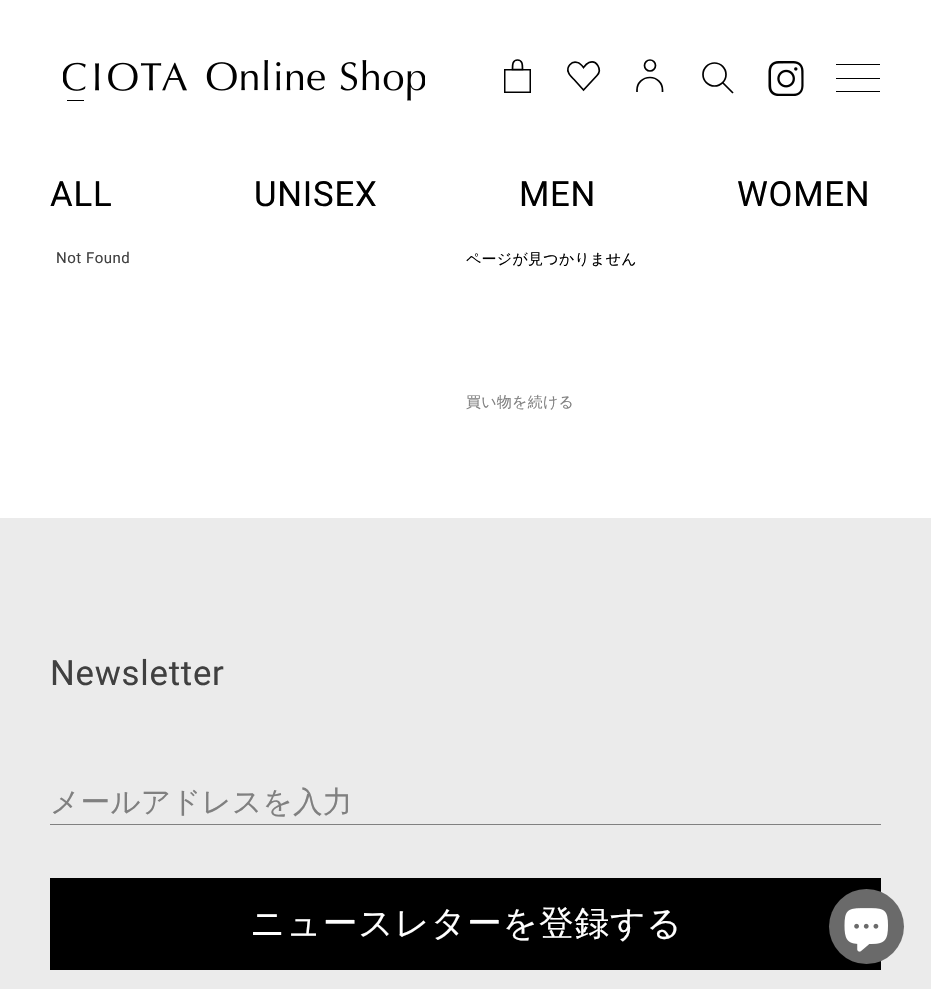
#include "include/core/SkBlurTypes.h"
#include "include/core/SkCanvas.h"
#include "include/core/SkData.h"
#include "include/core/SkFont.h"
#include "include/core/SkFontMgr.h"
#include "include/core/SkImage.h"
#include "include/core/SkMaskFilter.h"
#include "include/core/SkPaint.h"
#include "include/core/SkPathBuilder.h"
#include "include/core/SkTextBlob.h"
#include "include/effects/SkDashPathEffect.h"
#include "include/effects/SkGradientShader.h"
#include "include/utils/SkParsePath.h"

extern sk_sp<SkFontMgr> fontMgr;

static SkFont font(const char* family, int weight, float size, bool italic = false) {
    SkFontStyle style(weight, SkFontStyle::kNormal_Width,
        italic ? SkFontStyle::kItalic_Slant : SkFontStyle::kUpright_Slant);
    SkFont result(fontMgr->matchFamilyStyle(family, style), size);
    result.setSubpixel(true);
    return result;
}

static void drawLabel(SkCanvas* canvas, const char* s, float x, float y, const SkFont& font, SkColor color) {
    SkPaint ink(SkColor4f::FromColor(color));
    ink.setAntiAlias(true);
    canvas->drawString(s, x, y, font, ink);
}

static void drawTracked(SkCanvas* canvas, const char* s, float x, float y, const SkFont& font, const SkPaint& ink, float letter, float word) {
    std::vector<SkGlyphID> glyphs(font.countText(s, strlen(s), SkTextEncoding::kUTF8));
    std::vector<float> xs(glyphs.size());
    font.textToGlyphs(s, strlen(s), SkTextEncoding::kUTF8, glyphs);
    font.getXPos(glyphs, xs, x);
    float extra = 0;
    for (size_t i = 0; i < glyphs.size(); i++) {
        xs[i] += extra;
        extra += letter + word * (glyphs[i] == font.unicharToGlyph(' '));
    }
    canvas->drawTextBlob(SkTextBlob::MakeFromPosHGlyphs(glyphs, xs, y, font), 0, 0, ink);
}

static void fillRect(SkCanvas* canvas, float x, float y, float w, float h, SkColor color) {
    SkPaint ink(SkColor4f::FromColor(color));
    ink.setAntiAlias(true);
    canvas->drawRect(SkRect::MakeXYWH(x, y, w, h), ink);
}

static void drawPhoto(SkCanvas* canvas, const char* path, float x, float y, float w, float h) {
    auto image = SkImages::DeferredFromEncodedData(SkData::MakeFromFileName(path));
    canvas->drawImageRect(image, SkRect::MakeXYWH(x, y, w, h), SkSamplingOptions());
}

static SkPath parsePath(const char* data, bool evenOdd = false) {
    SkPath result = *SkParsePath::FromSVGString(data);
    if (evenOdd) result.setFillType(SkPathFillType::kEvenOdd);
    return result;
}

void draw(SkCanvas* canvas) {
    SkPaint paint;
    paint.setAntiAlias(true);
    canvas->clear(0xFFFFFFFF);
    drawPhoto(canvas, "assets/img1.png", 63, 60, 362, 41);
    paint.setStroke(true);
    paint.setStrokeWidth(1.5f);
    paint.setColor(0xFF000000);
    canvas->drawRect(SkRect::MakeXYWH(504.75f, 69.75f, 25.5f, 22.5f), paint);
    paint.setStrokeWidth(1.7f);
    canvas->drawPath(parsePath("M517.5 60C523 60 522.5 66 522.5 69.5H512.5C512.5 66 512 60 517.5 60Z"), paint);
    canvas->drawPath(parsePath("M583.5 90L574.5 80C572.5 78 569.5 75.5 568.5 72.5C566 67 571.5 60.5 577.5 62.5C580 63 582 65.5 583.5 67.5C585 65.5 586.5 63.5 589 62.5C596.5 59.5 602.5 69.5 597 75.5Z"), paint);
    canvas->drawCircle(650, 65.5f, 5.5f, paint);
    canvas->drawPath(parsePath("M637 92V90C637 83 642.5 77.5 650 77.5C657 77.5 662.5 83 662.5 90V92"), paint);
    canvas->drawCircle(714.5f, 74.5f, 11.5f, paint);
    canvas->drawPath(parsePath("M722.5 82.5L733 93"), paint);
    drawPhoto(canvas, "assets/img2.png", 768, 61, 36, 35);
    fillRect(canvas, 836, 64, 44, 1, 0xFF000000);
    fillRect(canvas, 836, 78, 44, 1, 0xFF000000);
    fillRect(canvas, 836, 91, 44, 1, 0xFF000000);
    SkFont font1 = font("Roboto", 400, 34.75f);
    paint.setStroke(false);
    drawTracked(canvas, "ALL", 50, 206, font1, paint, 0.75f, 0);
    drawTracked(canvas, "UNISEX", 254, 206, font1, paint, 0.75f, 0);
    drawTracked(canvas, "MEN", 519, 206, font1, paint, 0.75f, 0);
    drawTracked(canvas, "WOMEN", 737, 206, font1, paint, 0.75f, 0);
    SkFont font2 = font("Roboto", 400, 15);
    paint.setColor(0xFF404040);
    drawTracked(canvas, "Not Found", 56, 263, font2, paint, 0.5f, 0);
    SkFont font3 = font("WenQuanYi Zen Hei", 500, 15);
    paint.setColor(0xFF000000);
    drawTracked(canvas, "ページが見つかりません", 466, 264, font3, paint, 0.25f, 0);
    paint.setColor(0xFF808080);
    drawTracked(canvas, "買い物を続ける", 466, 407, font3, paint, 0.25f, 0);
    fillRect(canvas, 0, 518, 931, 471, 0xFFEBEBEB);
    paint.setColor(0xFF404040);
    drawTracked(canvas, "Newsletter", 50, 685, font1, paint, 0.75f, 0);
    fillRect(canvas, 50, 824, 831, 1, 0xFF808080);
    SkFont font4 = font("WenQuanYi Zen Hei", 500, 29.75f);
    drawLabel(canvas, "メールアドレスを入力", 50, 812, font4, 0xFF808080);
    fillRect(canvas, 50, 878, 831, 92, 0xFF000000);
    SkFont font5 = font("WenQuanYi Zen Hei", 500, 34.75f);
    paint.setColor(0xFFFFFFFF);
    drawTracked(canvas, "ニュースレターを登録する", 250, 935, font5, paint, 0.75f, 0);
    paint.setColor(0xFF6A6A6A);
    canvas->drawCircle(866.5f, 926.5f, 37.5f, paint);
    drawPhoto(canvas, "assets/img3.png", 844, 908, 44, 44);
}
